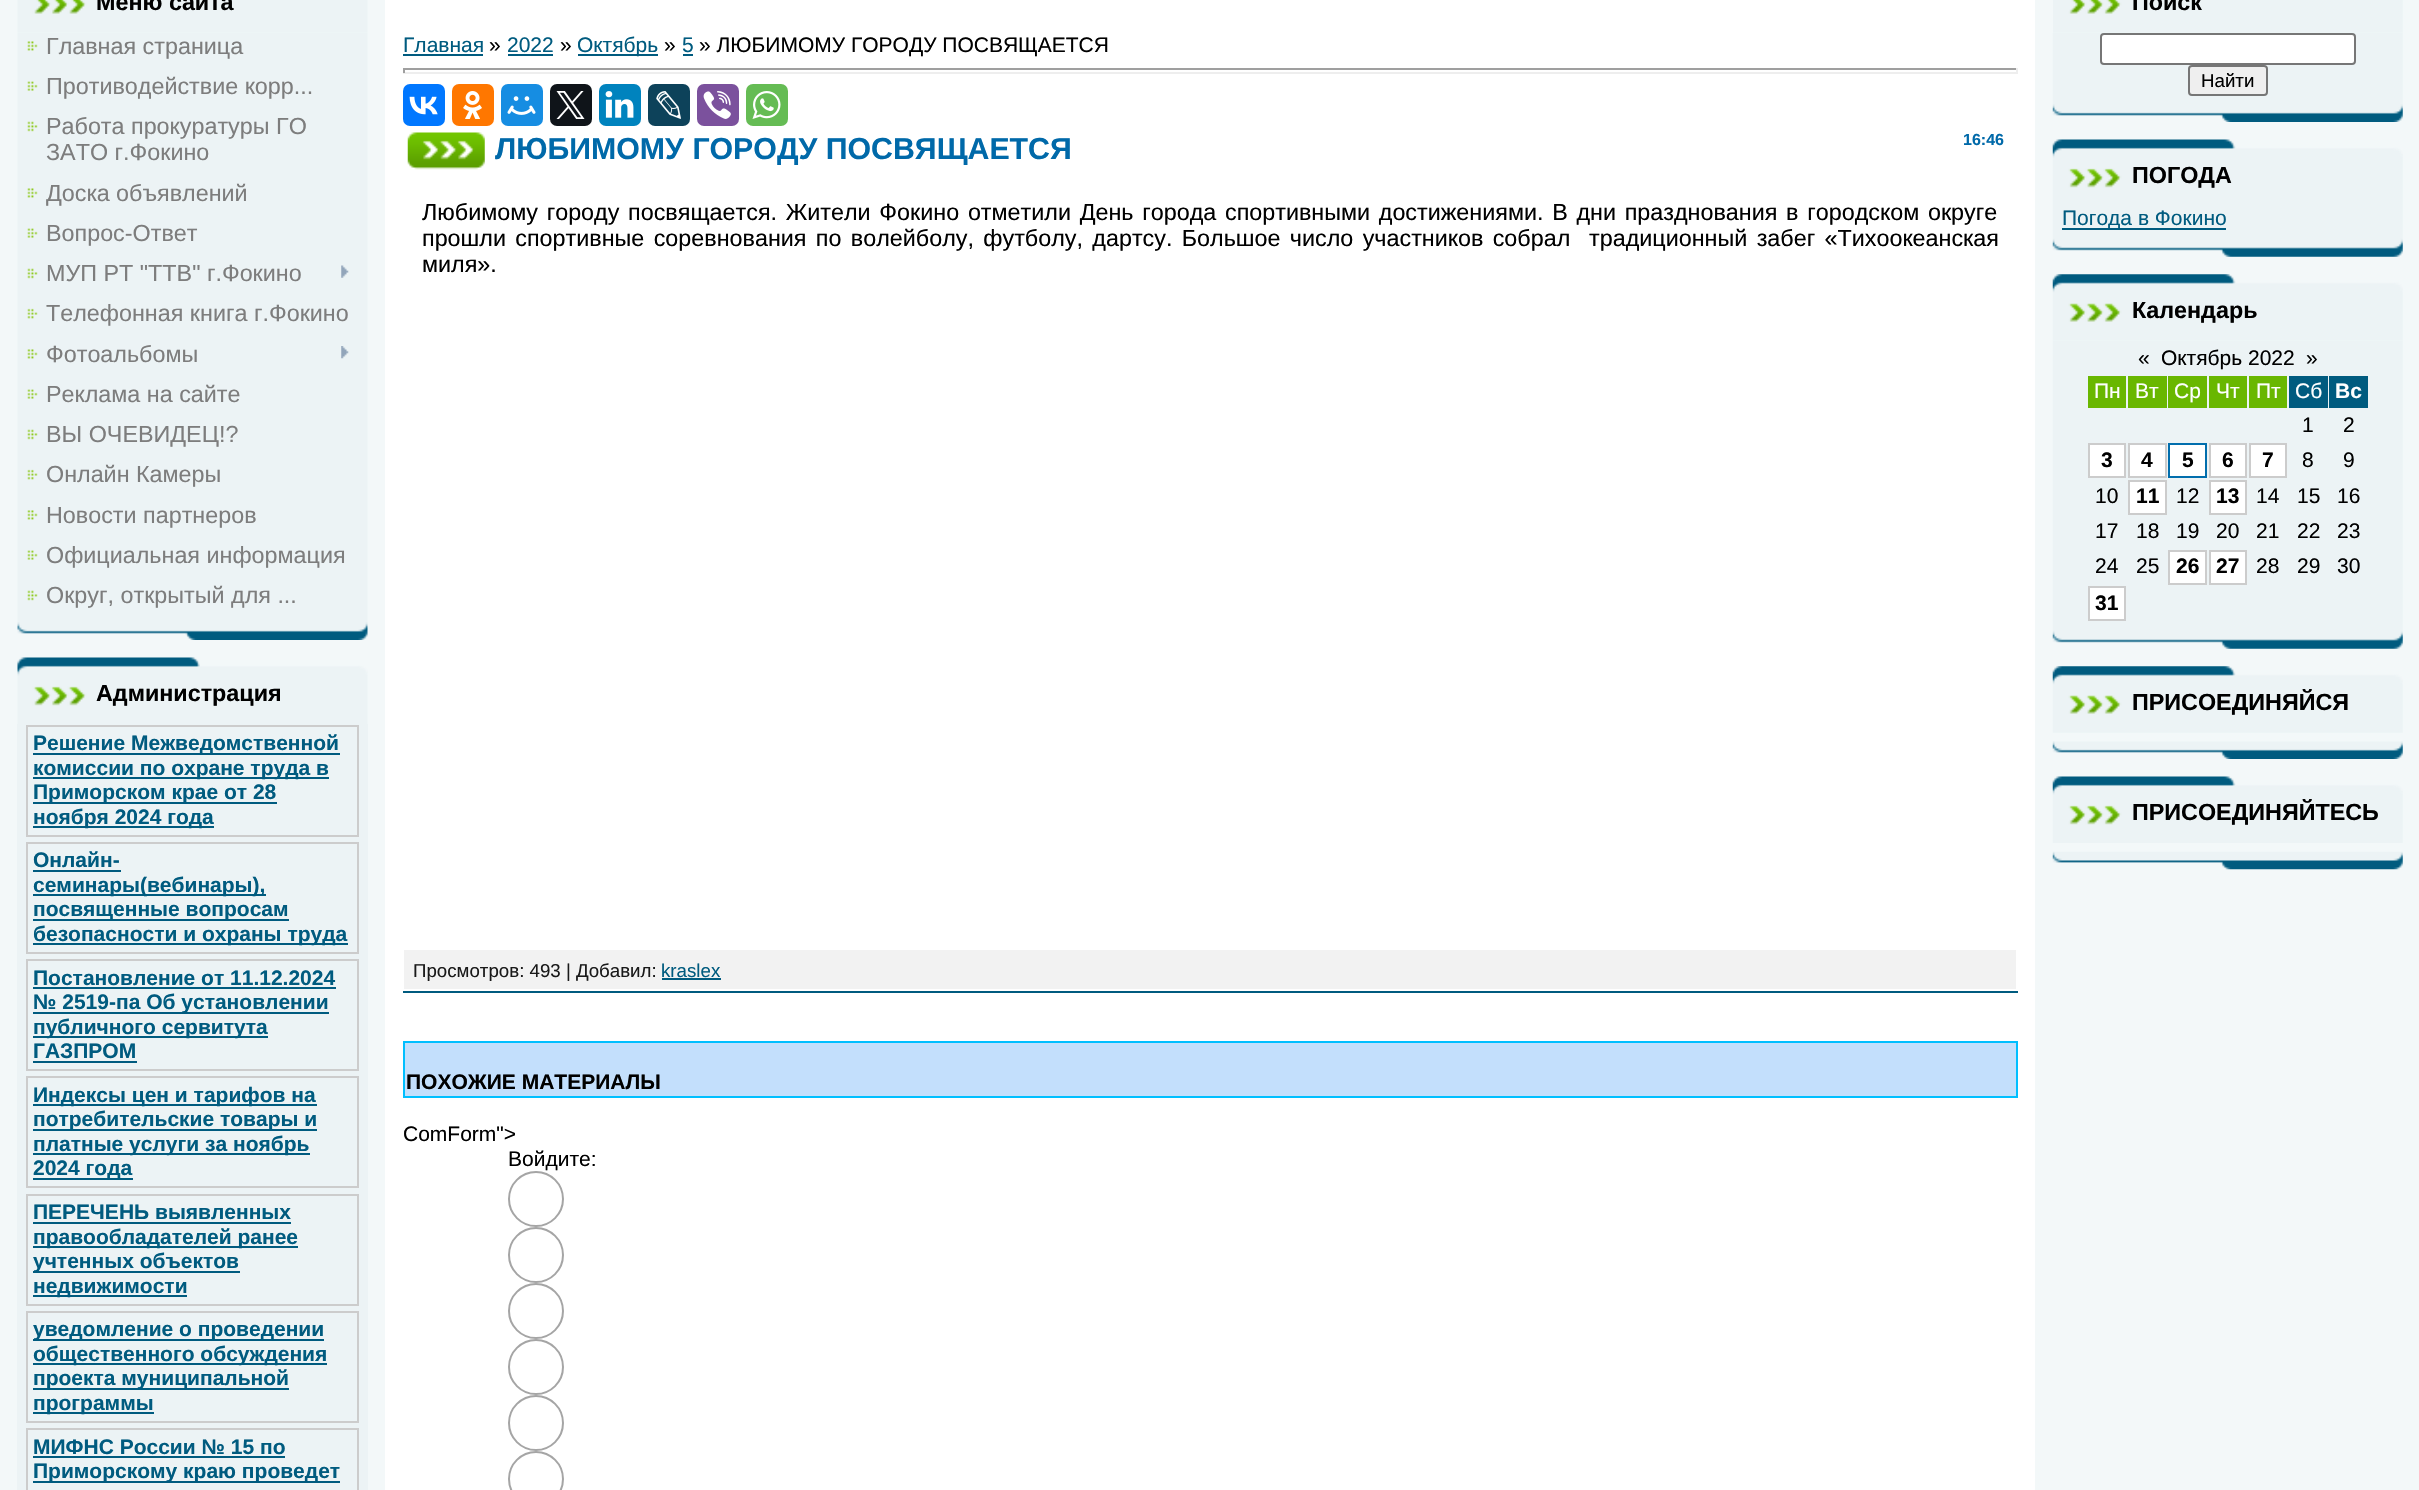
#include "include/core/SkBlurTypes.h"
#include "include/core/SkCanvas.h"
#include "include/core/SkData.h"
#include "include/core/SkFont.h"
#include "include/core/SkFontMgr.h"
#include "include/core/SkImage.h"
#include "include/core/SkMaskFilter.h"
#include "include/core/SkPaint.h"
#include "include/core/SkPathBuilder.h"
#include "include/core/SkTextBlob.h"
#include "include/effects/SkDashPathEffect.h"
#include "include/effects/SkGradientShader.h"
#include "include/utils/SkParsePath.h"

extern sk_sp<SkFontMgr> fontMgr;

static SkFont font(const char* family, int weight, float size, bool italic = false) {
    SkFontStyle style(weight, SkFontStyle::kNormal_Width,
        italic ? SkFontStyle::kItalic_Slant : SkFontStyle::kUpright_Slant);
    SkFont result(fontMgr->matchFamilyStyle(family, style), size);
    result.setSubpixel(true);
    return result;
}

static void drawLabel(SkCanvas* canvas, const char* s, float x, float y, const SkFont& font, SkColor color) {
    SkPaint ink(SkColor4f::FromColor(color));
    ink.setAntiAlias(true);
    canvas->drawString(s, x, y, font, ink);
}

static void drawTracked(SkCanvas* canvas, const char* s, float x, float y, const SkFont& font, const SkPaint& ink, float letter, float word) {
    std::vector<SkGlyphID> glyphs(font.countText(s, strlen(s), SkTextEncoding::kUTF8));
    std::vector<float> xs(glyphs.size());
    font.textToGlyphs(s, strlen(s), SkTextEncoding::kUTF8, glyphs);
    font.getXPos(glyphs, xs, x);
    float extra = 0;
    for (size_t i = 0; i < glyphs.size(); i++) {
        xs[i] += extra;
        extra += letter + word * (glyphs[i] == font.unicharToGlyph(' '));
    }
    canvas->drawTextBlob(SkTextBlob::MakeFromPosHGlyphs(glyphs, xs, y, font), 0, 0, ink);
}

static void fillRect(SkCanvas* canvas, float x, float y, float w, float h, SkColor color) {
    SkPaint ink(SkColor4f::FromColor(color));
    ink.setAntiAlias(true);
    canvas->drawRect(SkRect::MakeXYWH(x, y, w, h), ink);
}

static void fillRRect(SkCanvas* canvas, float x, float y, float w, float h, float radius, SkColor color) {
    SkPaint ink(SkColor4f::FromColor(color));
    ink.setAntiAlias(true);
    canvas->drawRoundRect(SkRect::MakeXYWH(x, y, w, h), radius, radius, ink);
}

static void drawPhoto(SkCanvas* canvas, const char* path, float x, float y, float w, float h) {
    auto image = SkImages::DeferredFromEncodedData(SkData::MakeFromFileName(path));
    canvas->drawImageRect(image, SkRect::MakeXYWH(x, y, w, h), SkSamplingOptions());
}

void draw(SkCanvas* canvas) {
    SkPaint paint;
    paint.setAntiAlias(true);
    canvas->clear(0xFFF3F8F9);
    drawPhoto(canvas, "assets/img1.png", 17, 0, 351, 33);
    SkFont font1 = font("Liberation Sans", 700, 23.33f);
    drawLabel(canvas, "Меню сайта", 96, 10, font1, 0xFF000000);
    drawPhoto(canvas, "assets/img2.png", 17, 33, 351, 607);
    drawPhoto(canvas, "assets/img3.png", 27, 41, 11, 10);
    SkFont font2 = font("Liberation Sans", 400, 23.33f);
    drawLabel(canvas, "Главная страница", 46, 54, font2, 0xFF7D7D7D);
    drawPhoto(canvas, "assets/img4.png", 27, 81, 11, 10);
    drawLabel(canvas, "Противодействие корр...", 46, 94, font2, 0xFF7D7D7D);
    drawPhoto(canvas, "assets/img5.png", 27, 121, 11, 11);
    drawLabel(canvas, "Работа прокуратуры ГО", 46, 134, font2, 0xFF7D7D7D);
    drawLabel(canvas, "ЗАТО г.Фокино", 46, 160, font2, 0xFF7D7D7D);
    drawPhoto(canvas, "assets/img3.png", 27, 188, 11, 10);
    drawLabel(canvas, "Доска объявлений", 46, 201, font2, 0xFF7D7D7D);
    drawPhoto(canvas, "assets/img4.png", 27, 228, 11, 10);
    drawLabel(canvas, "Вопрос-Ответ", 46, 241, font2, 0xFF7D7D7D);
    drawPhoto(canvas, "assets/img5.png", 27, 268, 11, 11);
    drawLabel(canvas, "МУП РТ \"ТТВ\" г.Фокино", 46, 281, font2, 0xFF7D7D7D);
    drawPhoto(canvas, "assets/img6.png", 341, 265, 8, 13);
    drawPhoto(canvas, "assets/img7.png", 27, 308, 11, 11);
    drawLabel(canvas, "Телефонная книга г.Фокино", 46, 321, font2, 0xFF7D7D7D);
    drawPhoto(canvas, "assets/img3.png", 27, 349, 11, 10);
    drawLabel(canvas, "Фотоальбомы", 46, 362, font2, 0xFF7D7D7D);
    drawPhoto(canvas, "assets/img8.png", 341, 346, 8, 13);
    drawPhoto(canvas, "assets/img4.png", 27, 389, 11, 10);
    drawLabel(canvas, "Реклама на сайте", 46, 402, font2, 0xFF7D7D7D);
    drawPhoto(canvas, "assets/img5.png", 27, 429, 11, 11);
    drawLabel(canvas, "ВЫ ОЧЕВИДЕЦ!?", 46, 442, font2, 0xFF7D7D7D);
    drawPhoto(canvas, "assets/img7.png", 27, 469, 11, 11);
    drawLabel(canvas, "Онлайн Камеры", 46, 482, font2, 0xFF7D7D7D);
    drawPhoto(canvas, "assets/img3.png", 27, 510, 11, 10);
    drawLabel(canvas, "Новости партнеров", 46, 523, font2, 0xFF7D7D7D);
    drawPhoto(canvas, "assets/img4.png", 27, 550, 11, 10);
    drawLabel(canvas, "Официальная информация", 46, 563, font2, 0xFF7D7D7D);
    drawPhoto(canvas, "assets/img5.png", 27, 590, 11, 11);
    drawLabel(canvas, "Округ, открытый для ...", 46, 603, font2, 0xFF7D7D7D);
    drawPhoto(canvas, "assets/img9.png", 17, 657, 351, 67);
    drawLabel(canvas, "Администрация", 96, 701, font1, 0xFF000000);
    fillRect(canvas, 17, 724, 351, 766, 0xFFECF3F5);
    paint.setStroke(true);
    paint.setStrokeWidth(2);
    paint.setColor(0xFFCCCCCC);
    canvas->drawRect(SkRect::MakeXYWH(27, 726, 331, 110), paint);
    fillRect(canvas, 33, 753, 307, 2, 0xFF005B7F);
    SkFont font3 = font("Liberation Sans", 700, 21);
    drawLabel(canvas, "Решение Межведомственной", 33, 750, font3, 0xFF005B7F);
    fillRect(canvas, 33, 777, 296, 2, 0xFF005B7F);
    drawLabel(canvas, "комиссии по охране труда в", 33, 775, font3, 0xFF005B7F);
    fillRect(canvas, 33, 802, 244, 2, 0xFF005B7F);
    drawLabel(canvas, "Приморском крае от 28", 33, 799, font3, 0xFF005B7F);
    fillRect(canvas, 33, 826, 181, 2, 0xFF005B7F);
    drawLabel(canvas, "ноября 2024 года", 33, 824, font3, 0xFF005B7F);
    canvas->drawRect(SkRect::MakeXYWH(27, 843, 331, 110), paint);
    drawLabel(canvas, "Онлайн-", 33, 867, font3, 0xFF005B7F);
    fillRect(canvas, 33, 870, 88, 2, 0xFF005B7F);
    fillRect(canvas, 33, 894, 233, 2, 0xFF005B7F);
    drawLabel(canvas, "семинары(вебинары),", 33, 892, font3, 0xFF005B7F);
    fillRect(canvas, 33, 919, 256, 2, 0xFF005B7F);
    drawLabel(canvas, "посвященные вопросам", 33, 916, font3, 0xFF005B7F);
    fillRect(canvas, 33, 943, 315, 2, 0xFF005B7F);
    drawLabel(canvas, "безопасности и охраны труда", 33, 941, font3, 0xFF005B7F);
    canvas->drawRect(SkRect::MakeXYWH(27, 960, 331, 110), paint);
    drawLabel(canvas, "Постановление от 11.12.2024", 33, 985, font3, 0xFF005B7F);
    fillRect(canvas, 33, 987, 303, 2, 0xFF005B7F);
    fillRect(canvas, 33, 1012, 296, 2, 0xFF005B7F);
    drawLabel(canvas, "№ 2519-па Об установлении", 33, 1009, font3, 0xFF005B7F);
    fillRect(canvas, 33, 1036, 235, 2, 0xFF005B7F);
    drawLabel(canvas, "публичного сервитута", 33, 1034, font3, 0xFF005B7F);
    drawLabel(canvas, "ГАЗПРОМ", 33, 1058, font3, 0xFF005B7F);
    fillRect(canvas, 33, 1061, 104, 2, 0xFF005B7F);
    canvas->drawRect(SkRect::MakeXYWH(27, 1077, 331, 110), paint);
    fillRect(canvas, 33, 1104, 284, 2, 0xFF005B7F);
    drawLabel(canvas, "Индексы цен и тарифов на", 33, 1102, font3, 0xFF005B7F);
    fillRect(canvas, 33, 1129, 284, 2, 0xFF005B7F);
    drawLabel(canvas, "потребительские товары и", 33, 1126, font3, 0xFF005B7F);
    fillRect(canvas, 33, 1153, 277, 2, 0xFF005B7F);
    drawLabel(canvas, "платные услуги за ноябрь", 33, 1151, font3, 0xFF005B7F);
    fillRect(canvas, 33, 1178, 100, 2, 0xFF005B7F);
    drawLabel(canvas, "2024 года", 33, 1175, font3, 0xFF005B7F);
    canvas->drawRect(SkRect::MakeXYWH(27, 1195, 331, 110), paint);
    drawLabel(canvas, "ПЕРЕЧЕНЬ выявленных", 33, 1219, font3, 0xFF005B7F);
    fillRect(canvas, 33, 1222, 258, 2, 0xFF005B7F);
    fillRect(canvas, 33, 1246, 265, 2, 0xFF005B7F);
    drawLabel(canvas, "правообладателей ранее", 33, 1244, font3, 0xFF005B7F);
    fillRect(canvas, 33, 1271, 207, 2, 0xFF005B7F);
    drawLabel(canvas, "учтенных объектов", 33, 1268, font3, 0xFF005B7F);
    fillRect(canvas, 33, 1295, 154, 2, 0xFF005B7F);
    drawLabel(canvas, "недвижимости", 33, 1293, font3, 0xFF005B7F);
    canvas->drawRect(SkRect::MakeXYWH(27, 1312, 331, 110), paint);
    fillRect(canvas, 33, 1339, 291, 2, 0xFF005B7F);
    drawLabel(canvas, "уведомление о проведении", 33, 1336, font3, 0xFF005B7F);
    fillRect(canvas, 33, 1363, 294, 2, 0xFF005B7F);
    drawLabel(canvas, "общественного обсуждения", 33, 1361, font3, 0xFF005B7F);
    fillRect(canvas, 33, 1388, 256, 2, 0xFF005B7F);
    drawLabel(canvas, "проекта муниципальной", 33, 1385, font3, 0xFF005B7F);
    fillRect(canvas, 33, 1412, 121, 2, 0xFF005B7F);
    drawLabel(canvas, "программы", 33, 1410, font3, 0xFF005B7F);
    canvas->drawRect(SkRect::MakeXYWH(27, 1429, 331, 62), paint);
    drawLabel(canvas, "МИФНС России № 15 по", 33, 1454, font3, 0xFF005B7F);
    fillRect(canvas, 33, 1456, 252, 2, 0xFF005B7F);
    fillRect(canvas, 33, 1481, 307, 2, 0xFF005B7F);
    drawLabel(canvas, "Приморскому краю проведет", 33, 1478, font3, 0xFF005B7F);
    fillRect(canvas, 385, 0, 1650, 1490, 0xFFFFFFFF);
    SkFont font4 = font("Liberation Sans", 400, 21);
    drawLabel(canvas, "Главная", 403, 52, font4, 0xFF005B7F);
    fillRect(canvas, 403, 54, 80, 2, 0xFF005B7F);
    drawLabel(canvas, "»", 489, 52, font4, 0xFF000000);
    drawLabel(canvas, "2022", 507, 52, font4, 0xFF005B7F);
    fillRect(canvas, 508, 54, 45, 2, 0xFF005B7F);
    drawLabel(canvas, "»", 560, 52, font4, 0xFF000000);
    fillRect(canvas, 578, 54, 80, 2, 0xFF005B7F);
    drawLabel(canvas, "Октябрь", 577, 52, font4, 0xFF005B7F);
    drawLabel(canvas, "»", 664, 52, font4, 0xFF000000);
    drawLabel(canvas, "5", 682, 52, font4, 0xFF005B7F);
    fillRect(canvas, 683, 54, 10, 2, 0xFF005B7F);
    drawLabel(canvas, "» ЛЮБИМОМУ ГОРОДУ ПОСВЯЩАЕТСЯ", 699, 52, font4, 0xFF000000);
    fillRect(canvas, 403, 68, 1615, 2, 0xFF9F9F9F);
    fillRect(canvas, 2016, 68, 2, 5, 0xFFEEEEEE);
    fillRect(canvas, 403, 72, 1615, 2, 0xFFEEEEEE);
    fillRect(canvas, 403, 68, 2, 5, 0xFF9F9F9F);
    fillRRect(canvas, 403, 84, 42, 42, 7, 0xFF0077FF);
    drawPhoto(canvas, "assets/img10.png", 409, 96, 29, 19);
    fillRRect(canvas, 452, 84, 42, 42, 7, 0xFFFF7700);
    drawPhoto(canvas, "assets/img11.png", 463, 91, 19, 28);
    fillRRect(canvas, 501, 84, 42, 42, 7, 0xFF168DE2);
    drawPhoto(canvas, "assets/img12.png", 507, 96, 29, 19);
    fillRRect(canvas, 550, 84, 42, 42, 7, 0xFF0F1419);
    drawPhoto(canvas, "assets/img13.png", 556, 91, 29, 28);
    fillRRect(canvas, 599, 84, 42, 42, 7, 0xFF0083BE);
    drawPhoto(canvas, "assets/img14.png", 605, 91, 29, 27);
    fillRRect(canvas, 648, 84, 42, 42, 7, 0xFF0D425A);
    drawPhoto(canvas, "assets/img15.png", 656, 91, 25, 28);
    fillRRect(canvas, 697, 84, 42, 42, 7, 0xFF7B519D);
    drawPhoto(canvas, "assets/img16.png", 703, 91, 28, 28);
    fillRRect(canvas, 746, 84, 42, 42, 7, 0xFF65BC54);
    drawPhoto(canvas, "assets/img17.png", 752, 91, 29, 28);
    fillRect(canvas, 403, 991, 1615, 2, 0xFF005B7F);
    drawPhoto(canvas, "assets/img18.png", 407, 132, 78, 38);
    SkFont font5 = font("Liberation Sans", 700, 30.3f);
    drawLabel(canvas, "ЛЮБИМОМУ ГОРОДУ ПОСВЯЩАЕТСЯ", 495, 159, font5, 0xFF0069A9);
    SkFont font6 = font("Liberation Sans", 700, 16);
    drawLabel(canvas, "16:46", 1963, 145, font6, 0xFF0069A9);
    paint.setStroke(false);
    paint.setColor(0xFF000000);
    drawTracked(canvas, "Любимому городу посвящается. Жители Фокино отметили День города спортивными достижениями. В дни празднования в городском округе", 422, 220, font2, paint, 0, 2.25f);
    drawTracked(canvas, "прошли спортивные соревнования по волейболу, футболу, дартсу. Большое число участников собрал  традиционный забег «Тихоокеанская", 422, 246, font2, paint, 0, 2.9f);
    drawLabel(canvas, "миля».", 422, 272, font2, 0xFF000000);
    fillRect(canvas, 404, 950, 1612, 39, 0xFFF2F2F2);
    SkFont font7 = font("Liberation Sans", 400, 18.7f);
    drawLabel(canvas, "Просмотров: 493 | Добавил:", 413, 977, font7, 0xFF1A1A1A);
    drawLabel(canvas, "kraslex", 661, 977, font7, 0xFF005B7F);
    fillRect(canvas, 662, 978, 59, 2, 0xFF005B7F);
    fillRect(canvas, 405, 1043, 1611, 53, 0xFFC3DFFC);
    fillRect(canvas, 403, 1041, 1615, 2, 0xFF00BFFF);
    fillRect(canvas, 2016, 1041, 2, 56, 0xFF00BFFF);
    fillRect(canvas, 403, 1096, 1615, 2, 0xFF00BFFF);
    fillRect(canvas, 403, 1041, 2, 56, 0xFF00BFFF);
    drawLabel(canvas, "ПОХОЖИЕ МАТЕРИАЛЫ", 406, 1089, font3, 0xFF000000);
    drawLabel(canvas, "ComForm\">", 403, 1141, font4, 0xFF000000);
    drawLabel(canvas, "Войдите:", 508, 1166, font4, 0xFF000000);
    paint.setStroke(true);
    paint.setColor(0xFFA5A5A5);
    canvas->drawCircle(536, 1199, 27, paint);
    canvas->drawCircle(536, 1255, 27, paint);
    canvas->drawCircle(536, 1311, 27, paint);
    canvas->drawCircle(536, 1367, 27, paint);
    canvas->drawCircle(536, 1423, 27, paint);
    canvas->drawCircle(536, 1479, 27, paint);
    drawPhoto(canvas, "assets/img19.png", 2053, 0, 350, 33);
    drawLabel(canvas, "Поиск", 2132, 10, font1, 0xFF000000);
    drawPhoto(canvas, "assets/img20.png", 2052, 33, 351, 89);
    paint.setStroke(false);
    paint.setColor(0xFFFFFFFF);
    canvas->drawRoundRect(SkRect::MakeXYWH(2101, 34, 254, 30), 3, 3, paint);
    paint.setStroke(true);
    paint.setColor(0xFF767676);
    canvas->drawRoundRect(SkRect::MakeXYWH(2101, 34, 254, 30), 3, 3, paint);
    paint.setStroke(false);
    paint.setColor(0xFFEFEFEF);
    canvas->drawRoundRect(SkRect::MakeXYWH(2189, 66, 78, 29), 3, 3, paint);
    paint.setStroke(true);
    paint.setColor(0xFF767676);
    canvas->drawRoundRect(SkRect::MakeXYWH(2189, 66, 78, 29), 3, 3, paint);
    drawLabel(canvas, "Найти", 2201, 87, font7, 0xFF000000);
    drawPhoto(canvas, "assets/img21.png", 2052, 139, 351, 67);
    drawLabel(canvas, "ПОГОДА", 2132, 183, font1, 0xFF000000);
    drawPhoto(canvas, "assets/img22.png", 2052, 206, 351, 51);
    fillRect(canvas, 2062, 228, 164, 2, 0xFF005B7F);
    drawLabel(canvas, "Погода в Фокино", 2062, 225, font4, 0xFF005B7F);
    drawPhoto(canvas, "assets/img23.png", 2052, 274, 351, 67);
    drawLabel(canvas, "Календарь", 2132, 318, font1, 0xFF000000);
    drawPhoto(canvas, "assets/img24.png", 2052, 341, 351, 308);
    drawLabel(canvas, "«", 2138, 365, font4, 0xFF000000);
    drawLabel(canvas, "Октябрь 2022", 2161, 365, font4, 0xFF000000);
    drawLabel(canvas, "»", 2306, 365, font4, 0xFF000000);
    fillRect(canvas, 2088, 376, 38, 32, 0xFF69B700);
    drawLabel(canvas, "Пн", 2094, 398, font4, 0xFFFFFFFF);
    fillRect(canvas, 2128, 376, 39, 32, 0xFF69B700);
    drawLabel(canvas, "Вт", 2135, 398, font4, 0xFFFFFFFF);
    fillRect(canvas, 2168, 376, 39, 32, 0xFF69B700);
    drawLabel(canvas, "Ср", 2174, 398, font4, 0xFFFFFFFF);
    fillRect(canvas, 2209, 376, 38, 32, 0xFF69B700);
    drawLabel(canvas, "Чт", 2216, 398, font4, 0xFFFFFFFF);
    fillRect(canvas, 2249, 376, 38, 32, 0xFF69B700);
    drawLabel(canvas, "Пт", 2256, 398, font4, 0xFFFFFFFF);
    fillRect(canvas, 2289, 376, 39, 32, 0xFF005B7F);
    drawLabel(canvas, "Сб", 2295, 398, font4, 0xFFFFFFFF);
    fillRect(canvas, 2329, 376, 39, 32, 0xFF005B7F);
    drawLabel(canvas, "Вс", 2335, 398, font3, 0xFFFFFFFF);
    drawLabel(canvas, "1", 2302, 432, font4, 0xFF000000);
    drawLabel(canvas, "2", 2343, 432, font4, 0xFF000000);
    paint.setStroke(false);
    paint.setColor(0xFFFFFFFF);
    canvas->drawRect(SkRect::MakeXYWH(2089, 444, 36, 33), paint);
    paint.setStroke(true);
    paint.setColor(0xFFCCCCCC);
    canvas->drawRect(SkRect::MakeXYWH(2089, 444, 36, 33), paint);
    drawLabel(canvas, "3", 2101, 467, font3, 0xFF000000);
    paint.setStroke(false);
    paint.setColor(0xFFFFFFFF);
    canvas->drawRect(SkRect::MakeXYWH(2129, 444, 37, 33), paint);
    paint.setStroke(true);
    paint.setColor(0xFFCCCCCC);
    canvas->drawRect(SkRect::MakeXYWH(2129, 444, 37, 33), paint);
    drawLabel(canvas, "4", 2141, 467, font3, 0xFF000000);
    paint.setStroke(false);
    paint.setColor(0xFFFFFFFF);
    canvas->drawRect(SkRect::MakeXYWH(2169, 444, 37, 33), paint);
    paint.setStroke(true);
    paint.setColor(0xFF016EAD);
    canvas->drawRect(SkRect::MakeXYWH(2169, 444, 37, 33), paint);
    drawLabel(canvas, "5", 2182, 467, font3, 0xFF000000);
    paint.setStroke(false);
    paint.setColor(0xFFFFFFFF);
    canvas->drawRect(SkRect::MakeXYWH(2210, 444, 36, 33), paint);
    paint.setStroke(true);
    paint.setColor(0xFFCCCCCC);
    canvas->drawRect(SkRect::MakeXYWH(2210, 444, 36, 33), paint);
    drawLabel(canvas, "6", 2222, 467, font3, 0xFF000000);
    paint.setStroke(false);
    paint.setColor(0xFFFFFFFF);
    canvas->drawRect(SkRect::MakeXYWH(2250, 444, 36, 33), paint);
    paint.setStroke(true);
    paint.setColor(0xFFCCCCCC);
    canvas->drawRect(SkRect::MakeXYWH(2250, 444, 36, 33), paint);
    drawLabel(canvas, "7", 2262, 467, font3, 0xFF000000);
    drawLabel(canvas, "8", 2302, 467, font4, 0xFF000000);
    drawLabel(canvas, "9", 2343, 467, font4, 0xFF000000);
    drawLabel(canvas, "10", 2095, 503, font4, 0xFF000000);
    paint.setStroke(false);
    paint.setColor(0xFFFFFFFF);
    canvas->drawRect(SkRect::MakeXYWH(2129, 481, 37, 33), paint);
    paint.setStroke(true);
    paint.setColor(0xFFCCCCCC);
    canvas->drawRect(SkRect::MakeXYWH(2129, 481, 37, 33), paint);
    drawLabel(canvas, "11", 2136, 503, font3, 0xFF000000);
    drawLabel(canvas, "12", 2176, 503, font4, 0xFF000000);
    paint.setStroke(false);
    paint.setColor(0xFFFFFFFF);
    canvas->drawRect(SkRect::MakeXYWH(2210, 481, 36, 33), paint);
    paint.setStroke(true);
    paint.setColor(0xFFCCCCCC);
    canvas->drawRect(SkRect::MakeXYWH(2210, 481, 36, 33), paint);
    drawLabel(canvas, "13", 2216, 503, font3, 0xFF000000);
    drawLabel(canvas, "14", 2256, 503, font4, 0xFF000000);
    drawLabel(canvas, "15", 2297, 503, font4, 0xFF000000);
    drawLabel(canvas, "16", 2337, 503, font4, 0xFF000000);
    drawLabel(canvas, "17", 2095, 538, font4, 0xFF000000);
    drawLabel(canvas, "18", 2136, 538, font4, 0xFF000000);
    drawLabel(canvas, "19", 2176, 538, font4, 0xFF000000);
    drawLabel(canvas, "20", 2216, 538, font4, 0xFF000000);
    drawLabel(canvas, "21", 2256, 538, font4, 0xFF000000);
    drawLabel(canvas, "22", 2297, 538, font4, 0xFF000000);
    drawLabel(canvas, "23", 2337, 538, font4, 0xFF000000);
    drawLabel(canvas, "24", 2095, 573, font4, 0xFF000000);
    drawLabel(canvas, "25", 2136, 573, font4, 0xFF000000);
    paint.setStroke(false);
    paint.setColor(0xFFFFFFFF);
    canvas->drawRect(SkRect::MakeXYWH(2169, 551, 37, 33), paint);
    paint.setStroke(true);
    paint.setColor(0xFFCCCCCC);
    canvas->drawRect(SkRect::MakeXYWH(2169, 551, 37, 33), paint);
    drawLabel(canvas, "26", 2176, 573, font3, 0xFF000000);
    paint.setStroke(false);
    paint.setColor(0xFFFFFFFF);
    canvas->drawRect(SkRect::MakeXYWH(2210, 551, 36, 33), paint);
    paint.setStroke(true);
    paint.setColor(0xFFCCCCCC);
    canvas->drawRect(SkRect::MakeXYWH(2210, 551, 36, 33), paint);
    drawLabel(canvas, "27", 2216, 573, font3, 0xFF000000);
    drawLabel(canvas, "28", 2256, 573, font4, 0xFF000000);
    drawLabel(canvas, "29", 2297, 573, font4, 0xFF000000);
    drawLabel(canvas, "30", 2337, 573, font4, 0xFF000000);
    paint.setStroke(false);
    paint.setColor(0xFFFFFFFF);
    canvas->drawRect(SkRect::MakeXYWH(2089, 587, 36, 33), paint);
    paint.setStroke(true);
    paint.setColor(0xFFCCCCCC);
    canvas->drawRect(SkRect::MakeXYWH(2089, 587, 36, 33), paint);
    drawLabel(canvas, "31", 2095, 610, font3, 0xFF000000);
    drawPhoto(canvas, "assets/img25.png", 2052, 666, 351, 67);
    drawLabel(canvas, "ПРИСОЕДИНЯЙСЯ", 2132, 710, font1, 0xFF000000);
    drawPhoto(canvas, "assets/img26.png", 2052, 741, 351, 18);
    drawPhoto(canvas, "assets/img21.png", 2052, 776, 351, 67);
    drawLabel(canvas, "ПРИСОЕДИНЯЙТЕСЬ", 2132, 820, font1, 0xFF000000);
    drawPhoto(canvas, "assets/img27.png", 2052, 851, 351, 19);
}
